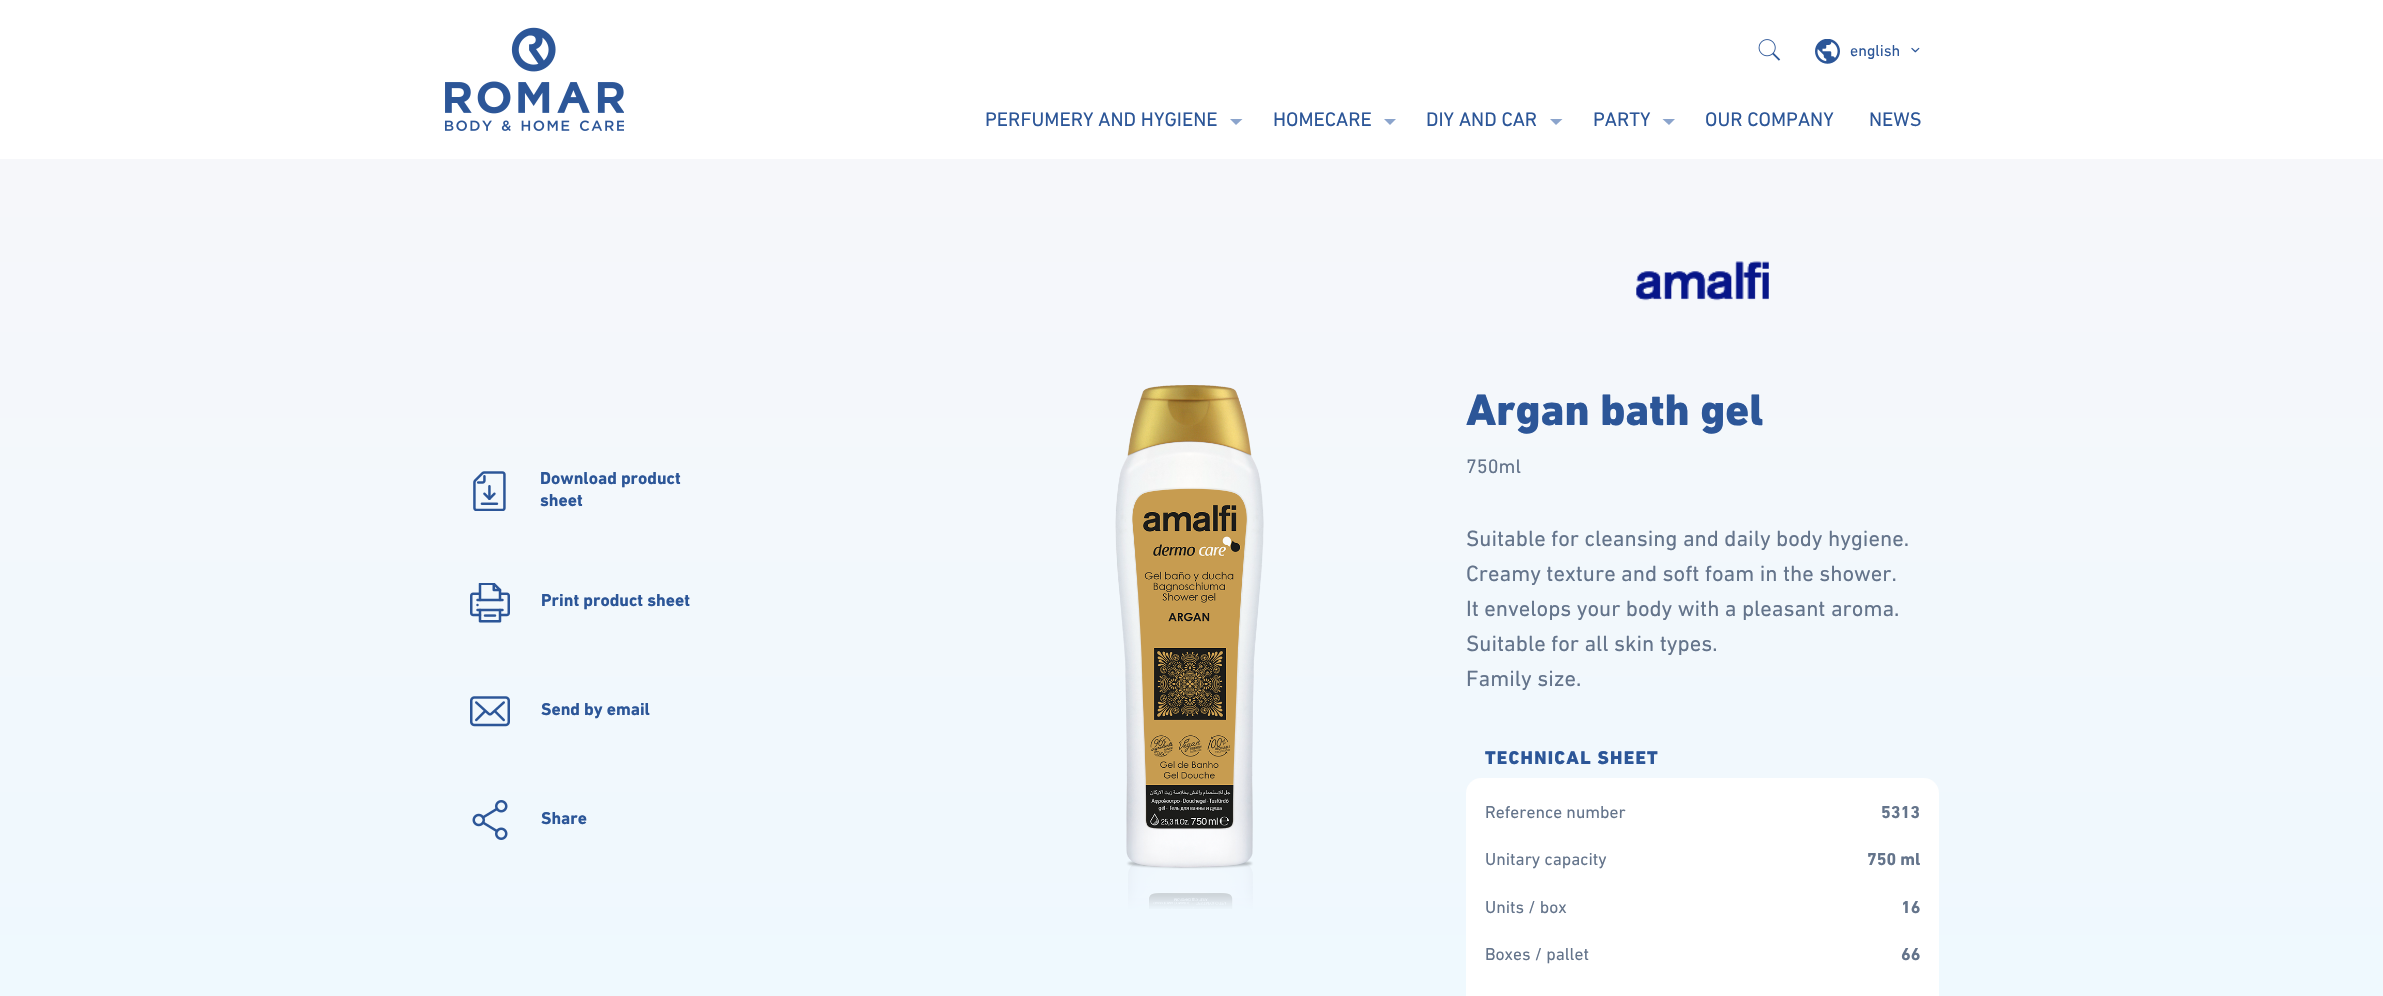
#include "include/core/SkBlurTypes.h"
#include "include/core/SkCanvas.h"
#include "include/core/SkData.h"
#include "include/core/SkFont.h"
#include "include/core/SkFontMgr.h"
#include "include/core/SkImage.h"
#include "include/core/SkMaskFilter.h"
#include "include/core/SkPaint.h"
#include "include/core/SkPathBuilder.h"
#include "include/core/SkTextBlob.h"
#include "include/effects/SkDashPathEffect.h"
#include "include/effects/SkGradientShader.h"
#include "include/utils/SkParsePath.h"

extern sk_sp<SkFontMgr> fontMgr;

static SkFont font(const char* family, int weight, float size, bool italic = false) {
    SkFontStyle style(weight, SkFontStyle::kNormal_Width,
        italic ? SkFontStyle::kItalic_Slant : SkFontStyle::kUpright_Slant);
    SkFont result(fontMgr->matchFamilyStyle(family, style), size);
    result.setSubpixel(true);
    return result;
}

static void drawLabel(SkCanvas* canvas, const char* s, float x, float y, const SkFont& font, SkColor color) {
    SkPaint ink(SkColor4f::FromColor(color));
    ink.setAntiAlias(true);
    canvas->drawString(s, x, y, font, ink);
}

static void drawTracked(SkCanvas* canvas, const char* s, float x, float y, const SkFont& font, const SkPaint& ink, float letter, float word) {
    std::vector<SkGlyphID> glyphs(font.countText(s, strlen(s), SkTextEncoding::kUTF8));
    std::vector<float> xs(glyphs.size());
    font.textToGlyphs(s, strlen(s), SkTextEncoding::kUTF8, glyphs);
    font.getXPos(glyphs, xs, x);
    float extra = 0;
    for (size_t i = 0; i < glyphs.size(); i++) {
        xs[i] += extra;
        extra += letter + word * (glyphs[i] == font.unicharToGlyph(' '));
    }
    canvas->drawTextBlob(SkTextBlob::MakeFromPosHGlyphs(glyphs, xs, y, font), 0, 0, ink);
}

static void fillRRect(SkCanvas* canvas, float x, float y, float w, float h, float radius, SkColor color) {
    SkPaint ink(SkColor4f::FromColor(color));
    ink.setAntiAlias(true);
    canvas->drawRoundRect(SkRect::MakeXYWH(x, y, w, h), radius, radius, ink);
}

static void drawPhoto(SkCanvas* canvas, const char* path, float x, float y, float w, float h) {
    auto image = SkImages::DeferredFromEncodedData(SkData::MakeFromFileName(path));
    canvas->drawImageRect(image, SkRect::MakeXYWH(x, y, w, h), SkSamplingOptions());
}

static SkPath parsePath(const char* data, bool evenOdd = false) {
    SkPath result = *SkParsePath::FromSVGString(data);
    if (evenOdd) result.setFillType(SkPathFillType::kEvenOdd);
    return result;
}

void draw(SkCanvas* canvas) {
    SkPaint paint;
    paint.setAntiAlias(true);
    canvas->clear(0xFFFFFFFF);
    drawPhoto(canvas, "assets/img1.png", 1758, 39, 23, 22);
    drawPhoto(canvas, "assets/img2.png", 1815, 39, 25, 25);
    SkFont font1 = font("DIN Next", 400, 16);
    drawLabel(canvas, "english", 1850, 56, font1, 0xFF2C5698);
    drawPhoto(canvas, "assets/img3.png", 1911, 47, 9, 6);
    drawPhoto(canvas, "assets/img4.png", 445, 27, 179, 104);
    SkFont font2 = font("DIN Next", 400, 20);
    drawLabel(canvas, "PERFUMERY AND HYGIENE", 985, 126, font2, 0xFF2C5698);
    paint.setColor(0xFF8BA4CC);
    canvas->drawPath(parsePath("M1230 119H1242.5L1236 125Z"), paint);
    drawLabel(canvas, "HOMECARE", 1273, 126, font2, 0xFF2C5698);
    canvas->drawPath(parsePath("M1384 119H1396L1390 125Z"), paint);
    drawLabel(canvas, "DIY AND CAR", 1426, 126, font2, 0xFF2C5698);
    canvas->drawPath(parsePath("M1550 119H1562.5L1556 125Z"), paint);
    drawLabel(canvas, "PARTY", 1593, 126, font2, 0xFF2C5698);
    canvas->drawPath(parsePath("M1662.5 119H1675L1669 125Z"), paint);
    drawLabel(canvas, "OUR COMPANY", 1705, 126, font2, 0xFF2C5698);
    drawLabel(canvas, "NEWS", 1869, 126, font2, 0xFF2C5698);
    {
        const SkColor colors[] = {0xFFEDF9FF, 0xFFF6F7FA};
        const float stops[] = {0, 1};
        const SkPoint ends[] = {{1192, 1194}, {1192, 159}};
        paint.setShader(SkGradientShader::MakeLinear(ends, colors, stops, 2, SkTileMode::kClamp));
        paint.setAlpha(255);
    }
    canvas->drawRect(SkRect::MakeXYWH(0, 159, 2383, 837), paint);
    drawPhoto(canvas, "assets/img5.png", 473, 471, 33, 40);
    SkFont font3 = font("DIN Next", 700, 17.5f);
    drawLabel(canvas, "Download product", 540, 484, font3, 0xFF2C5698);
    drawLabel(canvas, "sheet", 540, 506, font3, 0xFF2C5698);
    drawPhoto(canvas, "assets/img6.png", 470, 583, 40, 40);
    drawLabel(canvas, "Print product sheet", 541, 606, font3, 0xFF2C5698);
    drawPhoto(canvas, "assets/img7.png", 470, 696, 40, 31);
    drawLabel(canvas, "Send by email", 541, 715, font3, 0xFF2C5698);
    drawPhoto(canvas, "assets/img8.png", 472, 800, 36, 40);
    drawLabel(canvas, "Share", 541, 824, font3, 0xFF2C5698);
    drawPhoto(canvas, "assets/img9.png", 1115, 385, 149, 524);
    drawPhoto(canvas, "assets/img10.png", 1636, 261, 133, 40);
    SkFont font4 = font("DIN Next", 900, 45);
    drawLabel(canvas, "Argan bath gel", 1466, 425, font4, 0xFF2C5698);
    drawLabel(canvas, "750ml", 1466, 473, font2, 0xFF64748B);
    SkFont font5 = font("DIN Next", 400, 22.5f);
    drawLabel(canvas, "Suitable for cleansing and daily body hygiene.", 1466, 546, font5, 0xFF64748B);
    drawLabel(canvas, "Creamy texture and soft foam in the shower.", 1466, 581, font5, 0xFF64748B);
    drawLabel(canvas, "It envelops your body with a pleasant aroma.", 1466, 616, font5, 0xFF64748B);
    drawLabel(canvas, "Suitable for all skin types.", 1466, 651, font5, 0xFF64748B);
    drawLabel(canvas, "Family size.", 1466, 686, font5, 0xFF64748B);
    SkFont font6 = font("DIN Next", 900, 18.75f);
    paint.setShader(nullptr);
    paint.setColor(0xFF2C5698);
    drawTracked(canvas, "TECHNICAL SHEET", 1485, 764, font6, paint, 1.25f, 0);
    fillRRect(canvas, 1466, 778, 473, 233, 15, 0xFFFFFFFF);
    SkFont font7 = font("DIN Next", 400, 17.5f);
    drawLabel(canvas, "Reference number", 1485, 818, font7, 0xFF64748B);
    drawLabel(canvas, "5313", 1881, 818, font3, 0xFF64748B);
    drawLabel(canvas, "Unitary capacity", 1485, 865, font7, 0xFF64748B);
    drawLabel(canvas, "750 ml", 1867, 865, font3, 0xFF64748B);
    drawLabel(canvas, "Units / box", 1485, 913, font7, 0xFF64748B);
    drawLabel(canvas, "16", 1901, 913, font3, 0xFF64748B);
    drawLabel(canvas, "Boxes / pallet", 1485, 960, font7, 0xFF64748B);
    drawLabel(canvas, "66", 1901, 960, font3, 0xFF64748B);
}
